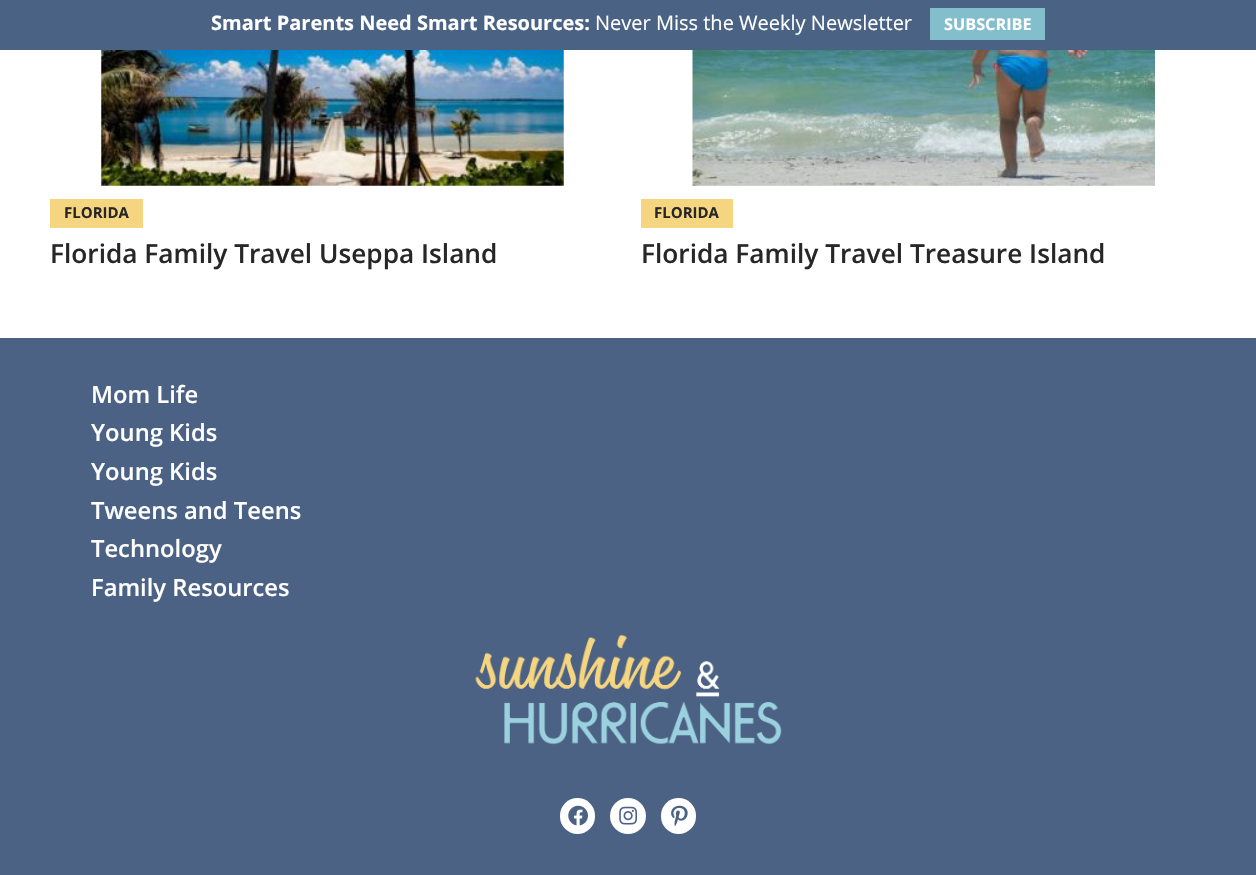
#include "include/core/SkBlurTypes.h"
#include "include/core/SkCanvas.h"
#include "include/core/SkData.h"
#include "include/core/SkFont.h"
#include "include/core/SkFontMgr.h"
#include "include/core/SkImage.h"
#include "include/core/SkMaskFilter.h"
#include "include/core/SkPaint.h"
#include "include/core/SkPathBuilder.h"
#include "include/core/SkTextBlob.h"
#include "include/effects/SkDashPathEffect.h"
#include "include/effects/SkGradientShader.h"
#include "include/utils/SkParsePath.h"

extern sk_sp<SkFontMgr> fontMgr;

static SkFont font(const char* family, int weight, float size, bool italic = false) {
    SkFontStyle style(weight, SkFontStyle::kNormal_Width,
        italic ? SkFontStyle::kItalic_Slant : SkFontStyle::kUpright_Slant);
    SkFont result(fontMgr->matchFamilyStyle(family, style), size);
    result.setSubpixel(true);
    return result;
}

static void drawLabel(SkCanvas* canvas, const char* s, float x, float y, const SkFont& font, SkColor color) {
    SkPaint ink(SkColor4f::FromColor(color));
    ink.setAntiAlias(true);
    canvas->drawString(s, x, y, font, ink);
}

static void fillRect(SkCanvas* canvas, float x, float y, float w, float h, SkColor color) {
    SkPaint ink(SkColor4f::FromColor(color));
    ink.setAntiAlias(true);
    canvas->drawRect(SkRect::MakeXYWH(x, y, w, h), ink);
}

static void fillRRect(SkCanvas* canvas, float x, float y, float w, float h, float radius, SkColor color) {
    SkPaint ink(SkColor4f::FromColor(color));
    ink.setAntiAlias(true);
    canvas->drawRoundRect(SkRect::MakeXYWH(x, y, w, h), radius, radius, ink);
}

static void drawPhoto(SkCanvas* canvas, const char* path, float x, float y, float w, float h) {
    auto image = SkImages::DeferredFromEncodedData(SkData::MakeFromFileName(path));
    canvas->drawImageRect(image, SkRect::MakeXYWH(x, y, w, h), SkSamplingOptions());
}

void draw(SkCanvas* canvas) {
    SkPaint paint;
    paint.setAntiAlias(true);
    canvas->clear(0xFFFFFFFF);
    fillRect(canvas, 0, 0, 1256, 50, 0xFF4A6283);
    SkFont font1 = font("Open Sans", 700, 20);
    drawLabel(canvas, "Smart Parents Need Smart Resources:", 211, 30, font1, 0xFFFFFFFF);
    SkFont font2 = font("Open Sans", 400, 20);
    drawLabel(canvas, "Never Miss the Weekly Newsletter", 595, 30, font2, 0xFFFFFFFF);
    fillRect(canvas, 930, 8, 115, 32, 0xFF83BECC);
    SkFont font3 = font("Open Sans", 700, 16.25f);
    drawLabel(canvas, "SUBSCRIBE", 944, 30, font3, 0xFFFFFFFF);
    drawPhoto(canvas, "assets/img1.png", 101, 50, 463, 136);
    fillRect(canvas, 50, 199, 93, 29, 0xFFF5D580);
    SkFont font4 = font("Open Sans", 700, 15);
    drawLabel(canvas, "FLORIDA", 64, 218, font4, 0xFF272727);
    SkFont font5 = font("Open Sans", 600, 26.25f);
    drawLabel(canvas, "Florida Family Travel Useppa Island", 50, 263, font5, 0xFF272727);
    drawPhoto(canvas, "assets/img2.png", 692, 50, 463, 136);
    fillRect(canvas, 641, 199, 92, 29, 0xFFF5D580);
    drawLabel(canvas, "FLORIDA", 654, 218, font4, 0xFF272727);
    drawLabel(canvas, "Florida Family Travel Treasure Island", 641, 263, font5, 0xFF272727);
    fillRect(canvas, 0, 338, 1256, 537, 0xFF4B6285);
    SkFont font6 = font("Open Sans", 600, 23.75f);
    drawLabel(canvas, "Mom Life", 91, 403, font6, 0xFFFFFFFF);
    drawLabel(canvas, "Young Kids", 91, 441, font6, 0xFFFFFFFF);
    drawLabel(canvas, "Young Kids", 91, 480, font6, 0xFFFFFFFF);
    drawLabel(canvas, "Tweens and Teens", 91, 519, font6, 0xFFFFFFFF);
    drawLabel(canvas, "Technology", 91, 557, font6, 0xFFFFFFFF);
    drawLabel(canvas, "Family Resources", 91, 596, font6, 0xFFFFFFFF);
    drawPhoto(canvas, "assets/img3.png", 475, 634, 307, 111);
    fillRRect(canvas, 560, 798, 35, 36, 17.5f, 0xFFFFFFFF);
    drawPhoto(canvas, "assets/img4.png", 568, 805, 20, 21);
    paint.setColor(0xFFFFFFFF);
    canvas->drawCircle(628, 816, 18, paint);
    drawPhoto(canvas, "assets/img5.png", 619, 806, 19, 19);
    fillRRect(canvas, 661, 798, 35, 36, 17.5f, 0xFFFFFFFF);
    drawPhoto(canvas, "assets/img6.png", 671, 805, 17, 22);
}
